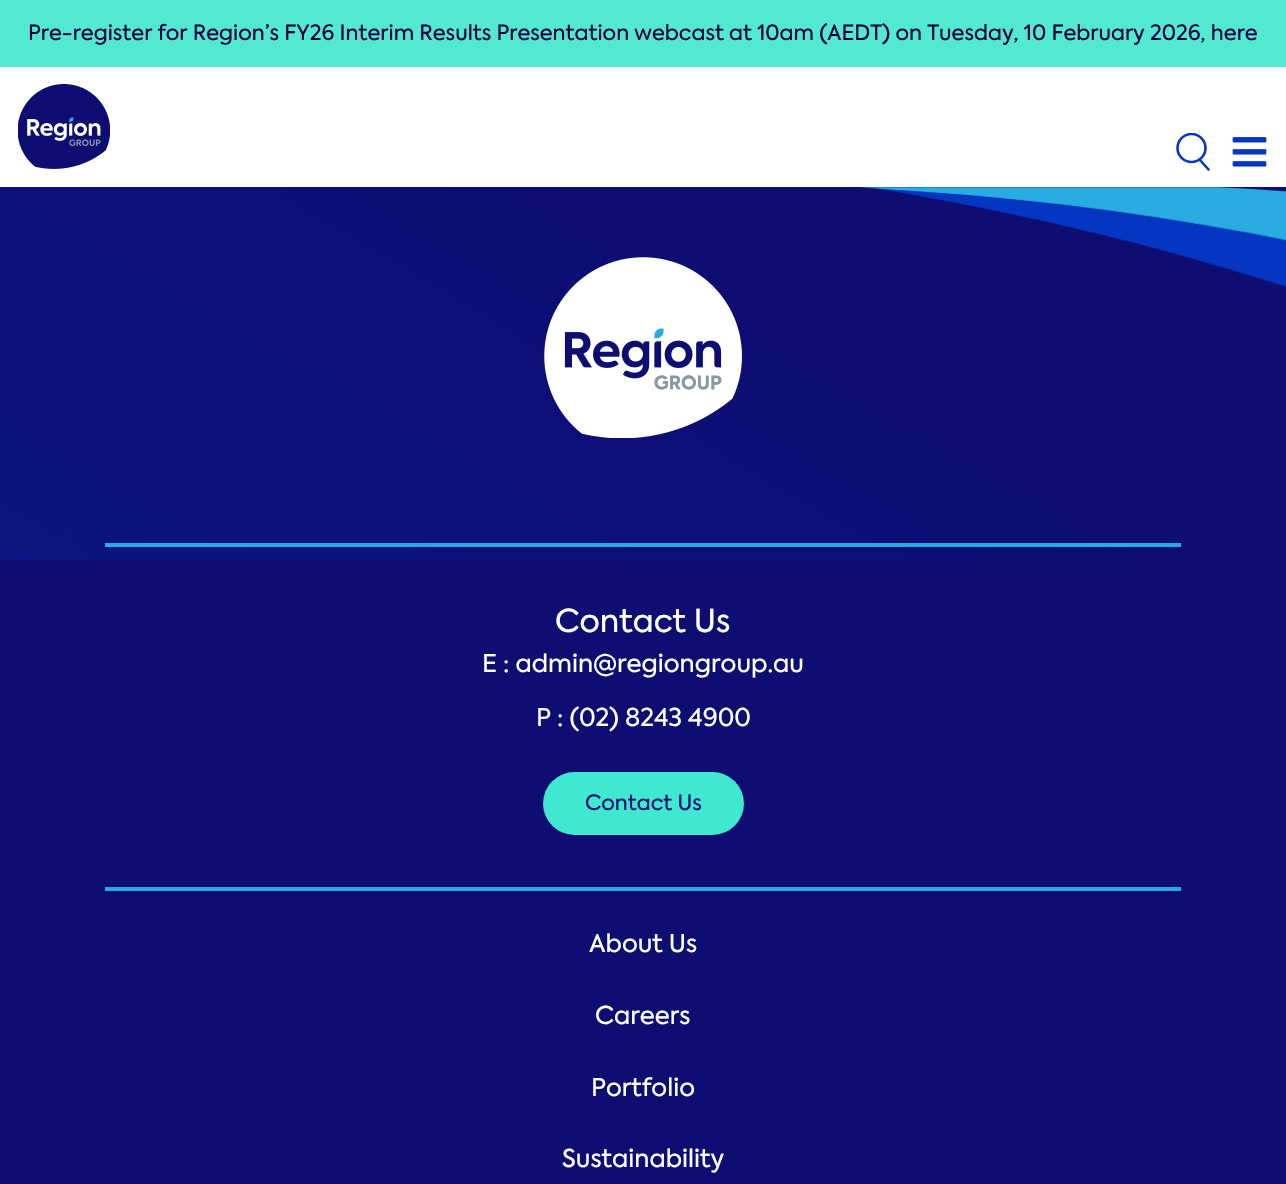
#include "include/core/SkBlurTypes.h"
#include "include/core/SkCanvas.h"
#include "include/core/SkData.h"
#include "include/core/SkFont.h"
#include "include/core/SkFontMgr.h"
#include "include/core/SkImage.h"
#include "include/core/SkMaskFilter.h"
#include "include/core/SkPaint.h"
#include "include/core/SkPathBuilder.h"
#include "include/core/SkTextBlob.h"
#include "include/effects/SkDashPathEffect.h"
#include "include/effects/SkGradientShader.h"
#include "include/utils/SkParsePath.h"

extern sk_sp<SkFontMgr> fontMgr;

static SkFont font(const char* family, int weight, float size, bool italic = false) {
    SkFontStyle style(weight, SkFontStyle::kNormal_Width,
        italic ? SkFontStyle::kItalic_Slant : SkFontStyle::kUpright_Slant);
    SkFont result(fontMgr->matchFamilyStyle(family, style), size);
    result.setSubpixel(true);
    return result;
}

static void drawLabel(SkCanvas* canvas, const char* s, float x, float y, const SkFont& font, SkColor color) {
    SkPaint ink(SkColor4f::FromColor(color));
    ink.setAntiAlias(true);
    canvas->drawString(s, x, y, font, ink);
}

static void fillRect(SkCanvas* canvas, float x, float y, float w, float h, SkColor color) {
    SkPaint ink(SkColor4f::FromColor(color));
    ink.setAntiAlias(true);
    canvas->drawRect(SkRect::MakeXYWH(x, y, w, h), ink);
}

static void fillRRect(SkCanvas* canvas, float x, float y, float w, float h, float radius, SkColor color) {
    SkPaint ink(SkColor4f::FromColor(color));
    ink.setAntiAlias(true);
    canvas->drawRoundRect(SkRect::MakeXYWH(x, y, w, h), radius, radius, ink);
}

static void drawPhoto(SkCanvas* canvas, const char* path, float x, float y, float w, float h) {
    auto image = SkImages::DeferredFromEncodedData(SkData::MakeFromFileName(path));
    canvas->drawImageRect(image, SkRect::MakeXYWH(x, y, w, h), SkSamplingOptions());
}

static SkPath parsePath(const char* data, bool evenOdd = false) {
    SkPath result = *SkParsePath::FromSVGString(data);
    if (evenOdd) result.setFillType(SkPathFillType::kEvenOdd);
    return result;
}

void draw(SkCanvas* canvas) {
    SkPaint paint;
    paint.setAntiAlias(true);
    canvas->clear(0xFFFFFFFF);
    fillRect(canvas, 0, 0, 1286, 67, 0xFF51EAD0);
    SkFont font1 = font("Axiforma", 400, 21);
    drawLabel(canvas, "Pre-register for Region’s FY26 Interim Results Presentation webcast at 10am (AEDT) on Tuesday, 10 February 2026, here", 28, 40, font1, 0xFF19013F);
    drawPhoto(canvas, "assets/img1.png", 18, 84, 92, 85);
    canvas->save();
    canvas->clipRect(SkRect::MakeXYWH(1174, 133, 39, 39));
    paint.setStroke(true);
    paint.setStrokeWidth(2.6f);
    paint.setColor(0xFF0536C1);
    canvas->drawCircle(1191.5f, 148, 14, paint);
    canvas->restore();
    paint.setStrokeCap(SkPaint::kRound_Cap);
    canvas->drawPath(parsePath("M1199.5 159.5L1208.5 169.5"), paint);
    drawPhoto(canvas, "assets/img2.png", 1232, 137, 35, 30);
    fillRect(canvas, 0, 187, 1286, 997, 0xFF0D0D72);
    drawPhoto(canvas, "assets/img3.png", 0, 187, 1286, 373);
    fillRect(canvas, 105, 543, 1076, 4, 0xFF29ABE2);
    drawPhoto(canvas, "assets/img4.png", 544, 257, 198, 181);
    fillRect(canvas, 105, 887, 1076, 4, 0xFF29ABE2);
    SkFont font2 = font("Axiforma", 400, 31.5f);
    drawLabel(canvas, "Contact Us", 555, 632, font2, 0xFFFFFFFF);
    SkFont font3 = font("Axiforma", 400, 24.5f);
    drawLabel(canvas, "E : admin@regiongroup.au", 482, 672, font3, 0xFFFFFFFF);
    drawLabel(canvas, "P : (02) 8243 4900", 536, 726, font3, 0xFFFFFFFF);
    fillRRect(canvas, 543, 772, 201, 63, 31.5f, 0xFF3FE9CF);
    drawLabel(canvas, "Contact Us", 585, 810, font1, 0xFF0D0D72);
    drawLabel(canvas, "About Us", 589, 952, font3, 0xFFFFFFFF);
    drawLabel(canvas, "Careers", 595, 1024, font3, 0xFFFFFFFF);
    drawLabel(canvas, "Portfolio", 591, 1096, font3, 0xFFFFFFFF);
    drawLabel(canvas, "Sustainability", 562, 1167, font3, 0xFFFFFFFF);
}
